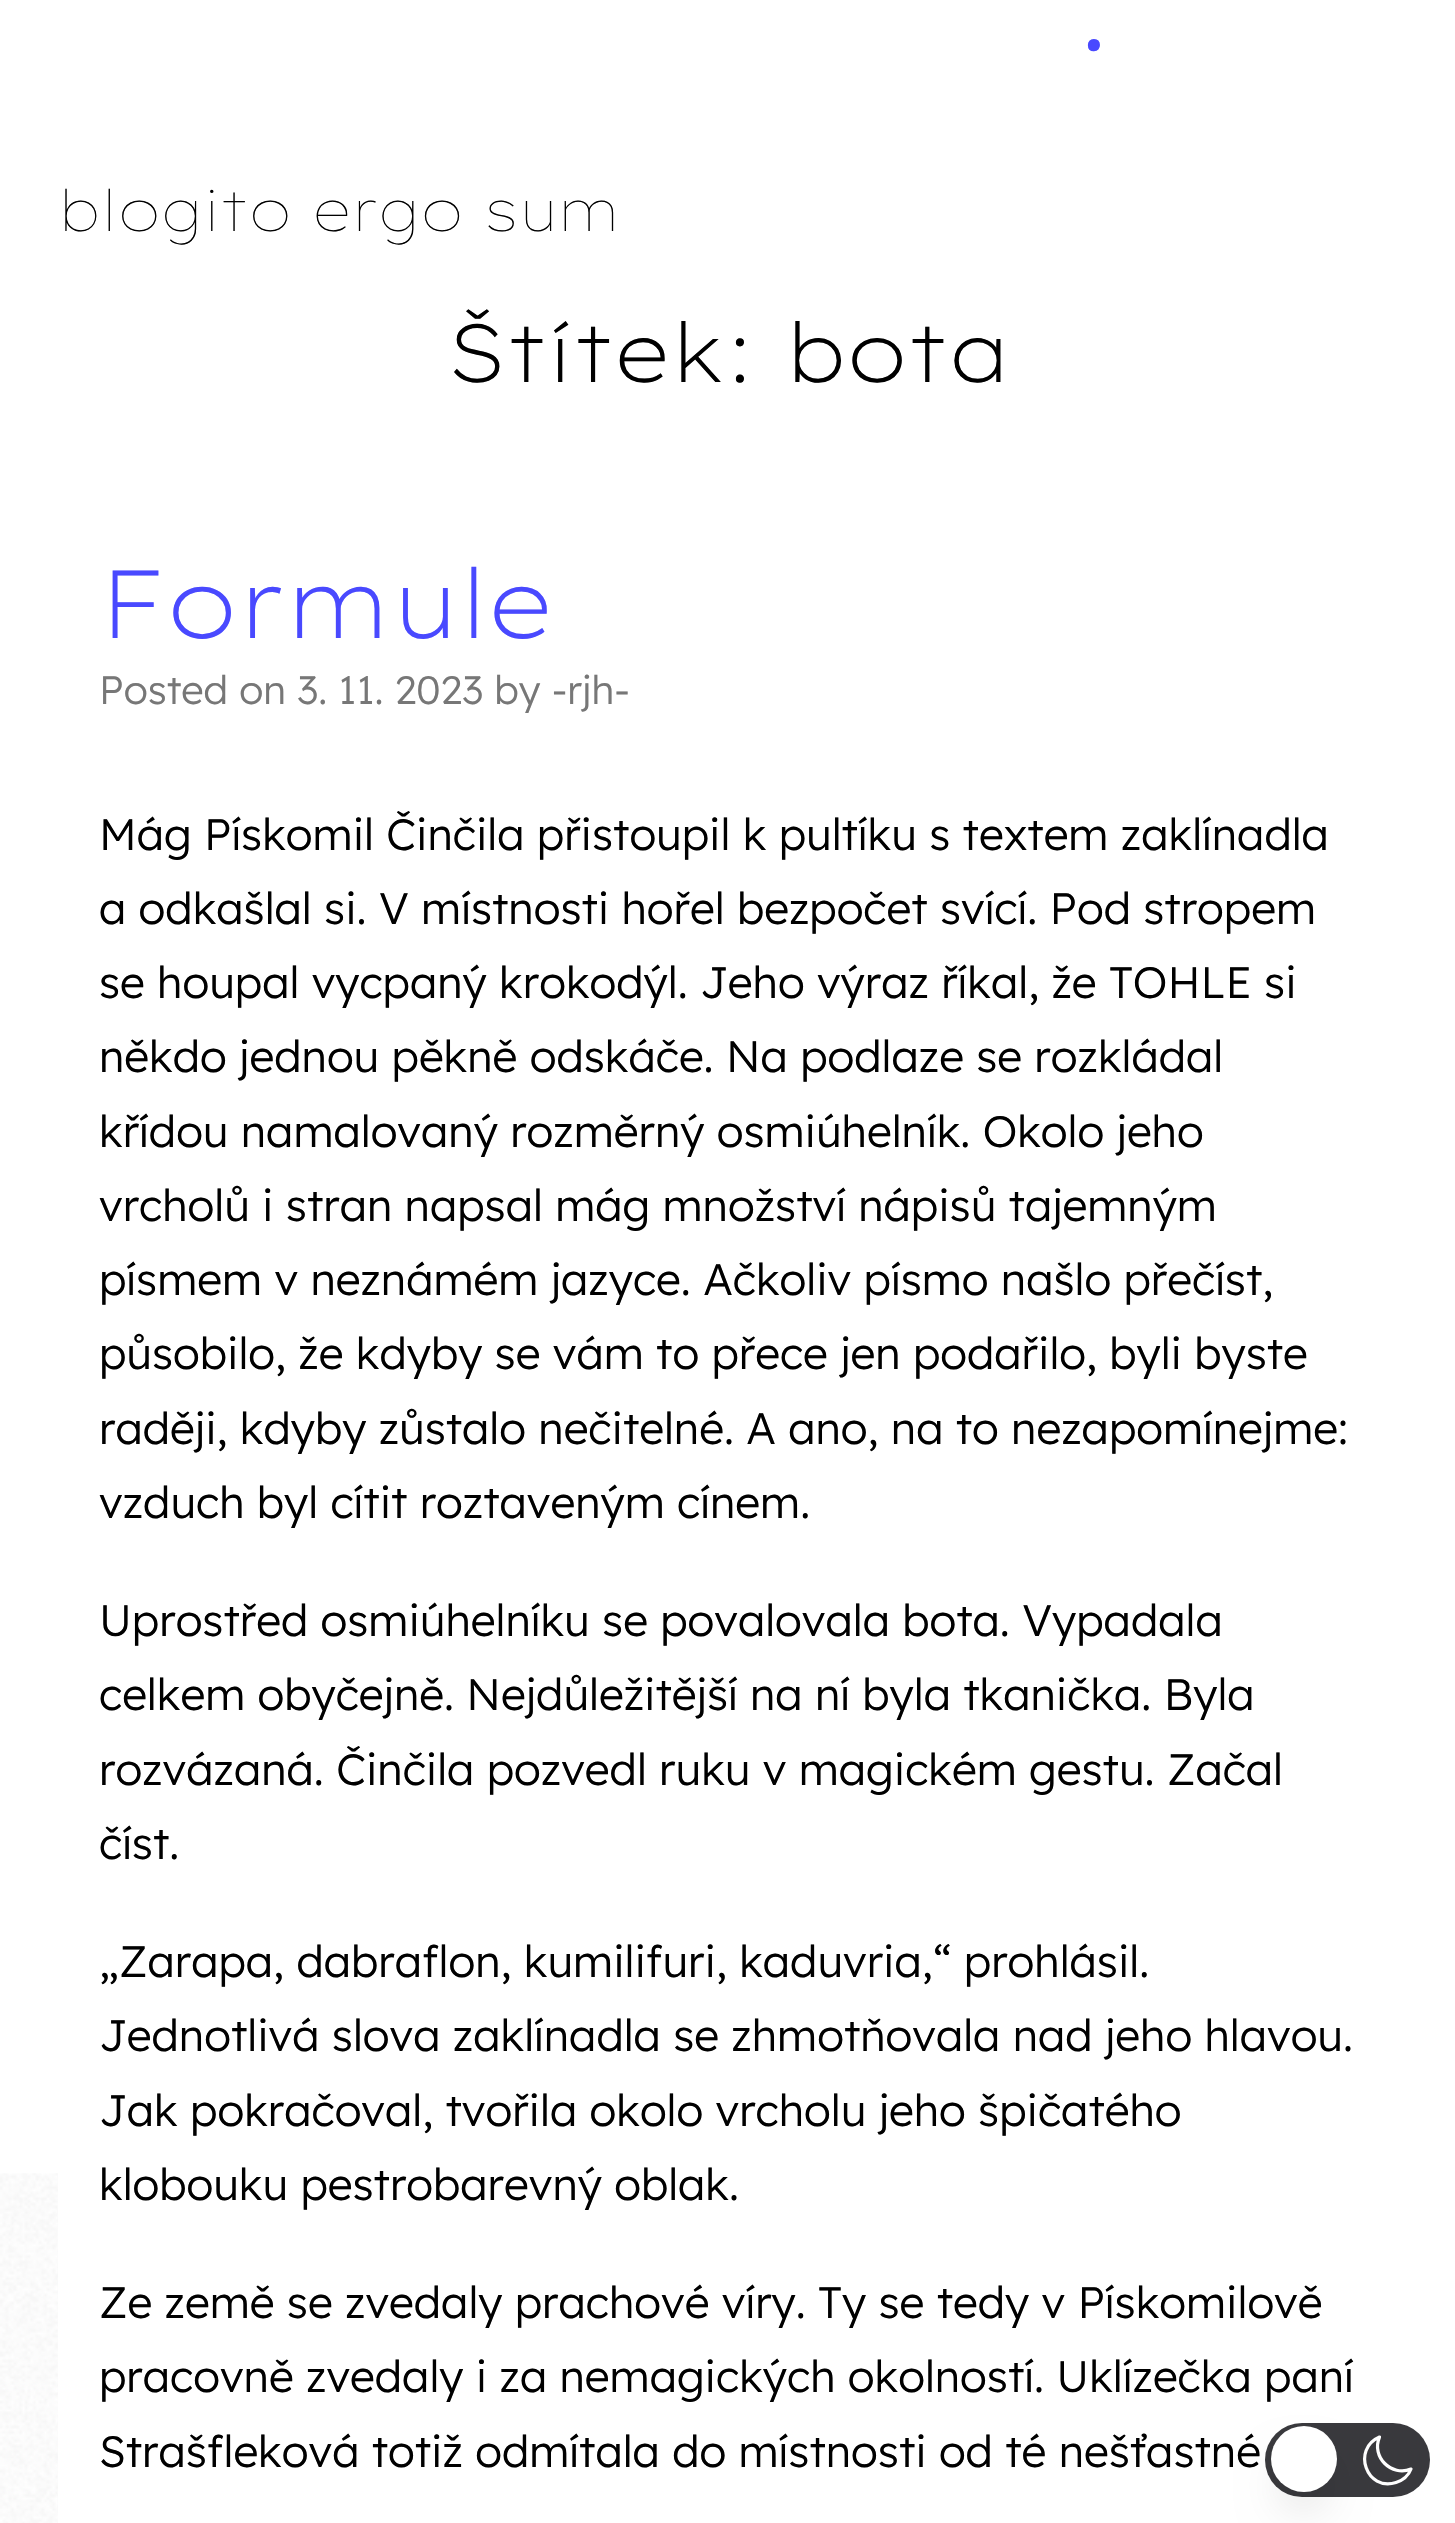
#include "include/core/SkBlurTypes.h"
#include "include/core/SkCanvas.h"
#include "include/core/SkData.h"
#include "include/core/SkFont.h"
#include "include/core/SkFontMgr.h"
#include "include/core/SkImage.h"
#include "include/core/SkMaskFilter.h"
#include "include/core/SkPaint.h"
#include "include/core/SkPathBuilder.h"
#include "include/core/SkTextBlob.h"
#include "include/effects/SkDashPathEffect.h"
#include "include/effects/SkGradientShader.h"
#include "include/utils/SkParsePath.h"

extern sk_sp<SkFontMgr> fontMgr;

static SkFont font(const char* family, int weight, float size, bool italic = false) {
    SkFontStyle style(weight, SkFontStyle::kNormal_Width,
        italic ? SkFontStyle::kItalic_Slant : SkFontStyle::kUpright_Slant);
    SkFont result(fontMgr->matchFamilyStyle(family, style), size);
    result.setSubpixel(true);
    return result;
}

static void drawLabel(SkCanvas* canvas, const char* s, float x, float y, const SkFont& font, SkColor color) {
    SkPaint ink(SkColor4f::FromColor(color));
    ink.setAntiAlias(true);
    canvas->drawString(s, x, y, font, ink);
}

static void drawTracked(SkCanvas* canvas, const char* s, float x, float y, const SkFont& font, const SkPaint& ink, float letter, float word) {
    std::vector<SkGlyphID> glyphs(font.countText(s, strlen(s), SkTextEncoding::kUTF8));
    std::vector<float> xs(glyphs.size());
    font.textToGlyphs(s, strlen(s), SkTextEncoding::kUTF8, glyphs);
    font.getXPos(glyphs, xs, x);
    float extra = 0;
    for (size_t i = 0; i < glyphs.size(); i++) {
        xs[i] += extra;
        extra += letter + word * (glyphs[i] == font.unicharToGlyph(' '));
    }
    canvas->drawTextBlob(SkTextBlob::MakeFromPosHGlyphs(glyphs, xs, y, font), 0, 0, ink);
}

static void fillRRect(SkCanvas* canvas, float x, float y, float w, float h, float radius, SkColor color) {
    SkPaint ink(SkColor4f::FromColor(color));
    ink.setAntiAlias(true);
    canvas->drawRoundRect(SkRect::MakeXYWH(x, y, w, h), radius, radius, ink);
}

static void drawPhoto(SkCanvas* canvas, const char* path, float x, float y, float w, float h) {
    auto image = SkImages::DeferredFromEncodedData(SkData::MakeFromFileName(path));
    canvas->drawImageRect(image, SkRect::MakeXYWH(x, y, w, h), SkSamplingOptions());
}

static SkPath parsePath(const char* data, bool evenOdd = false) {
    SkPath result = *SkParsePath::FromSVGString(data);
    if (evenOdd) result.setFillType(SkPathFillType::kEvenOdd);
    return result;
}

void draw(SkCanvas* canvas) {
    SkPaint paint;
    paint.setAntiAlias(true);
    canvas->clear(0xFFFFFFFF);
    drawPhoto(canvas, "assets/img1.png", 0, 2173, 58, 350);
    SkFont font1 = font("Lexend Exa", 200, 123);
    paint.setColor(0xFF4949FF);
    drawTracked(canvas, ".", 1072, 50, font1, paint, -6, 0);
    SkFont font2 = font("Lexend Exa", 100, 57.25f);
    drawLabel(canvas, "blogito ergo sum", 58, 231, font2, 0xFF000000);
    SkFont font3 = font("Lexend Exa", 200, 82.5f);
    drawLabel(canvas, "Štítek: bota", 447, 382, font3, 0xFF000000);
    SkFont font4 = font("Lexend Exa", 200, 96.25f);
    drawLabel(canvas, "Formule", 99, 638, font4, 0xFF4949FF);
    SkFont font5 = font("Lexend Deca", 300, 39.6f);
    drawLabel(canvas, "Posted on 3. 11. 2023 by -rjh-", 99, 704, font5, 0xFF777777);
    SkFont font6 = font("Lexend Deca", 300, 44);
    drawLabel(canvas, "Mág Pískomil Činčila přistoupil k pultíku s textem zaklínadla", 99, 850, font6, 0xFF000000);
    drawLabel(canvas, "a odkašlal si. V místnosti hořel bezpočet svící. Pod stropem", 99, 924, font6, 0xFF000000);
    drawLabel(canvas, "se houpal vycpaný krokodýl. Jeho výraz říkal, že TOHLE si", 99, 998, font6, 0xFF000000);
    drawLabel(canvas, "někdo jednou pěkně odskáče. Na podlaze se rozkládal", 99, 1072, font6, 0xFF000000);
    drawLabel(canvas, "křídou namalovaný rozměrný osmiúhelník. Okolo jeho", 99, 1147, font6, 0xFF000000);
    drawLabel(canvas, "vrcholů i stran napsal mág množství nápisů tajemným", 99, 1221, font6, 0xFF000000);
    drawLabel(canvas, "písmem v neznámém jazyce. Ačkoliv písmo našlo přečíst,", 99, 1295, font6, 0xFF000000);
    drawLabel(canvas, "působilo, že kdyby se vám to přece jen podařilo, byli byste", 99, 1369, font6, 0xFF000000);
    drawLabel(canvas, "raději, kdyby zůstalo nečitelné. A ano, na to nezapomínejme:", 99, 1444, font6, 0xFF000000);
    drawLabel(canvas, "vzduch byl cítit roztaveným cínem.", 99, 1518, font6, 0xFF000000);
    drawLabel(canvas, "Uprostřed osmiúhelníku se povalovala bota. Vypadala", 99, 1636, font6, 0xFF000000);
    drawLabel(canvas, "celkem obyčejně. Nejdůležitější na ní byla tkanička. Byla", 99, 1710, font6, 0xFF000000);
    drawLabel(canvas, "rozvázaná. Činčila pozvedl ruku v magickém gestu. Začal", 99, 1785, font6, 0xFF000000);
    drawLabel(canvas, "číst.", 99, 1859, font6, 0xFF000000);
    drawLabel(canvas, "„Zarapa, dabraflon, kumilifuri, kaduvria,“ prohlásil.", 99, 1977, font6, 0xFF000000);
    drawLabel(canvas, "Jednotlivá slova zaklínadla se zhmotňovala nad jeho hlavou.", 99, 2051, font6, 0xFF000000);
    drawLabel(canvas, "Jak pokračoval, tvořila okolo vrcholu jeho špičatého", 99, 2126, font6, 0xFF000000);
    drawLabel(canvas, "klobouku pestrobarevný oblak.", 99, 2200, font6, 0xFF000000);
    drawLabel(canvas, "Ze země se zvedaly prachové víry. Ty se tedy v Pískomilově", 99, 2318, font6, 0xFF000000);
    drawLabel(canvas, "pracovně zvedaly i za nemagických okolností. Uklízečka paní", 99, 2392, font6, 0xFF000000);
    drawLabel(canvas, "Strašfleková totiž odmítala do místnosti od té nešťastné", 99, 2467, font6, 0xFF000000);
    fillRRect(canvas, 1265, 2423, 165, 74, 37, 0xFF39393D);
    paint.setStroke(true);
    paint.setStrokeWidth(3.2f);
    paint.setStrokeCap(SkPaint::kRound_Cap);
    paint.setStrokeJoin(SkPaint::kRound_Join);
    paint.setColor(0xFFFFFFFF);
    canvas->drawPath(parsePath("M1411 2469C1391.5 2477 1371 2457 1379.5 2437C1351.5 2449 1366.5 2492 1396 2482.5C1402.5 2480.5 1408.5 2475.5 1411 2469Z"), paint);
    paint.setStroke(false);
    paint.setColor(0x1A000000);
    paint.setMaskFilter(SkMaskFilter::MakeBlur(kNormal_SkBlurStyle, 20.5f));
    canvas->drawRoundRect(SkRect::MakeXYWH(1279, 2461, 49, 50), 24.5f, 24.5f, paint);
    paint.setMaskFilter(nullptr);
    paint.setColor(0xFFFFFFFF);
    canvas->drawCircle(1304, 2459, 33, paint);
}
